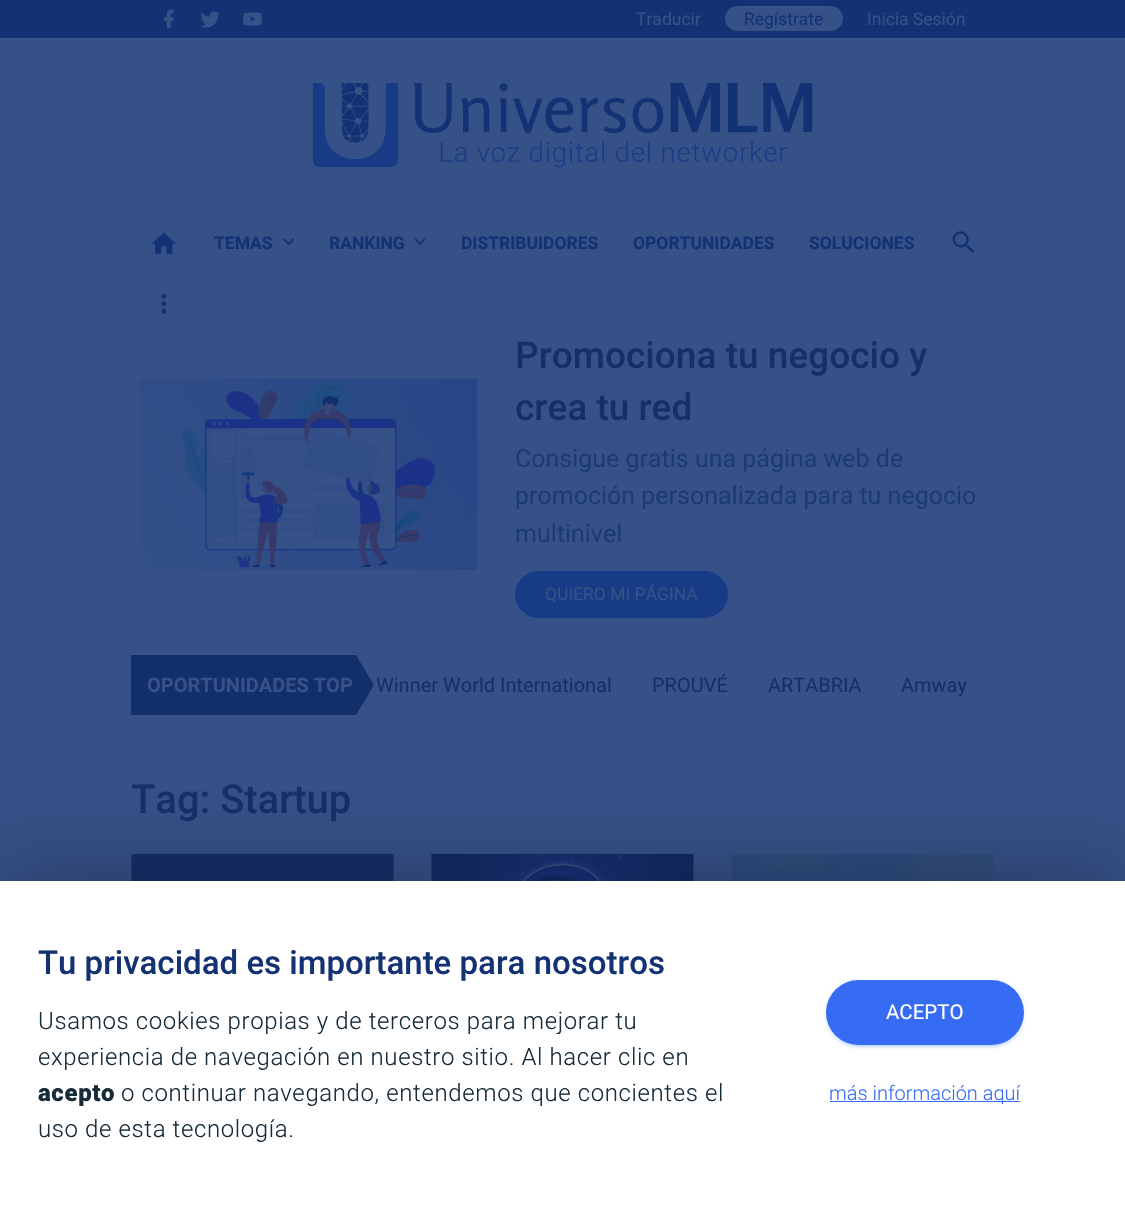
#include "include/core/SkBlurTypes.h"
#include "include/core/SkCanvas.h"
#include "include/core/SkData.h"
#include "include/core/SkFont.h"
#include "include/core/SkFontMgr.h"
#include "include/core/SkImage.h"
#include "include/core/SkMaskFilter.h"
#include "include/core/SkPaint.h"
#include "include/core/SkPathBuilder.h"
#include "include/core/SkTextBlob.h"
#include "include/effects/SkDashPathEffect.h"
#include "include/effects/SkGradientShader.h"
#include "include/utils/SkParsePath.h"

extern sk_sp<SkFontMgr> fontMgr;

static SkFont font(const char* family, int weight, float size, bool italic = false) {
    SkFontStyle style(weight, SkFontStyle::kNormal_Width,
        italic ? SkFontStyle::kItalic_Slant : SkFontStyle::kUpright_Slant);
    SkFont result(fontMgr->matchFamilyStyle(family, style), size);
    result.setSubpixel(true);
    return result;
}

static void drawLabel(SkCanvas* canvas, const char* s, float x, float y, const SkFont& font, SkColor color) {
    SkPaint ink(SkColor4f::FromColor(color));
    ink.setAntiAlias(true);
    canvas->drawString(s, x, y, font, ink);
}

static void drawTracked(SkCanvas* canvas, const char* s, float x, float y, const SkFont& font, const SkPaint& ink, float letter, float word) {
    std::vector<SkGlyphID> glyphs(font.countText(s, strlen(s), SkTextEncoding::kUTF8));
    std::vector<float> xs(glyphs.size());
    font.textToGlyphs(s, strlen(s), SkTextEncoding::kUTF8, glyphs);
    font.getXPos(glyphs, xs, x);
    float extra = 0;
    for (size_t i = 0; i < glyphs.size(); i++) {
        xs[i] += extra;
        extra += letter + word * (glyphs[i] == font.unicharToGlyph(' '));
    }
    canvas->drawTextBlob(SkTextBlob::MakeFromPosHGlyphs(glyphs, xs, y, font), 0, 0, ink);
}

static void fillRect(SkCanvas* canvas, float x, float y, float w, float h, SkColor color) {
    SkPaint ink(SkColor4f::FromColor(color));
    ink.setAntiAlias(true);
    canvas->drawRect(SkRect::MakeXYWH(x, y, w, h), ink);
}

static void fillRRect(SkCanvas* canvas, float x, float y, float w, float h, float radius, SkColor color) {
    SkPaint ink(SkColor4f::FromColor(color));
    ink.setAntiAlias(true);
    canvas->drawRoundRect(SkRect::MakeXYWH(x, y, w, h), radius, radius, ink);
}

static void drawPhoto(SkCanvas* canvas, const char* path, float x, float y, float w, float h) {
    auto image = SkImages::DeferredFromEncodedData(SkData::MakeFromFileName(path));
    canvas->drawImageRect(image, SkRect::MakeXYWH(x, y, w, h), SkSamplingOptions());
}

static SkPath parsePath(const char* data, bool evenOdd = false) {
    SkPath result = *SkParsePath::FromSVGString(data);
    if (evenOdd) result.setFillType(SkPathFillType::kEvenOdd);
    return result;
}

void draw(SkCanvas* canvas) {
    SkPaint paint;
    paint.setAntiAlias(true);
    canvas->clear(0xFF365188);
    fillRect(canvas, 0, 0, 1125, 38, 0xFF133273);
    drawPhoto(canvas, "assets/img1.png", 164, 9, 10, 20);
    drawPhoto(canvas, "assets/img2.png", 200, 11, 20, 17);
    drawPhoto(canvas, "assets/img3.png", 243, 12, 19, 14);
    SkFont font1 = font("Roboto", 400, 17.5f);
    drawLabel(canvas, "Traducir", 636, 25, font1, 0xFF365188);
    fillRRect(canvas, 725, 6, 118, 25, 12.5f, 0xFF365188);
    drawLabel(canvas, "Regístrate", 744, 25, font1, 0xFF133273);
    drawLabel(canvas, "Inicia Sesión", 867, 25, font1, 0xFF365188);
    drawPhoto(canvas, "assets/img4.png", 313, 83, 500, 85);
    drawPhoto(canvas, "assets/img5.png", 151, 232, 25, 22);
    SkFont font2 = font("Roboto", 700, 17.5f);
    drawLabel(canvas, "TEMAS", 214, 249, font2, 0xFF133273);
    drawPhoto(canvas, "assets/img6.png", 283, 238, 12, 8);
    drawLabel(canvas, "RANKING", 329, 249, font2, 0xFF133273);
    drawPhoto(canvas, "assets/img7.png", 414, 238, 12, 8);
    drawLabel(canvas, "DISTRIBUIDORES", 461, 249, font2, 0xFF133273);
    drawLabel(canvas, "OPORTUNIDADES", 633, 249, font2, 0xFF133273);
    drawLabel(canvas, "SOLUCIONES", 809, 249, font2, 0xFF133273);
    drawPhoto(canvas, "assets/img8.png", 161, 293, 6, 21);
    drawPhoto(canvas, "assets/img9.png", 952, 231, 23, 22);
    paint.setStroke(true);
    paint.setStrokeWidth(1);
    paint.setColor(0xFF324E85);
    canvas->drawRect(SkRect::MakeXYWH(131.5f, 324.5f, 862, 300), paint);
    drawPhoto(canvas, "assets/img10.png", 138, 378, 340, 192);
    SkFont font3 = font("Roboto", 500, 37);
    drawLabel(canvas, "Promociona tu negocio y", 515, 368, font3, 0xFF153068);
    drawLabel(canvas, "crea tu red", 515, 420, font3, 0xFF153068);
    SkFont font4 = font("Roboto", 400, 25);
    drawLabel(canvas, "Consigue gratis una página web de", 515, 467, font4, 0xFF1C3A76);
    drawLabel(canvas, "promoción personalizada para tu negocio", 515, 504, font4, 0xFF1C3A76);
    drawLabel(canvas, "multinivel", 515, 542, font4, 0xFF1C3A76);
    fillRRect(canvas, 515, 571, 213, 47, 23.5f, 0xFF183B86);
    drawLabel(canvas, "QUIERO MI PÁGINA", 545, 600, font1, 0xFF365188);
    fillRect(canvas, 131, 655, 225, 60, 0xFF122F6B);
    paint.setStroke(false);
    paint.setColor(0xFF122F6B);
    canvas->drawPath(parsePath("M356 715V655L374 685Z"), paint);
    SkFont font5 = font("Roboto", 700, 20);
    drawLabel(canvas, "OPORTUNIDADES TOP", 147, 692, font5, 0xFF365188);
    SkFont font6 = font("Roboto", 400, 20);
    drawLabel(canvas, "Winner World International", 376, 692, font6, 0xFF153068);
    drawLabel(canvas, "PROUVÉ", 652, 692, font6, 0xFF153068);
    drawLabel(canvas, "ARTABRIA", 768, 692, font6, 0xFF153068);
    drawLabel(canvas, "Amway", 901, 692, font6, 0xFF153068);
    SkFont font7 = font("Roboto", 500, 40);
    drawLabel(canvas, "Tag: Startup", 131, 813, font7, 0xFF153068);
    drawPhoto(canvas, "assets/img11.png", 131, 853, 263, 28);
    drawPhoto(canvas, "assets/img12.png", 431, 853, 263, 28);
    drawPhoto(canvas, "assets/img13.png", 731, 853, 263, 28);
    paint.setColor(0x40000000);
    paint.setMaskFilter(SkMaskFilter::MakeBlur(kNormal_SkBlurStyle, 37.5f));
    canvas->drawRect(SkRect::MakeXYWH(0, 869, 1125, 329), paint);
    paint.setMaskFilter(nullptr);
    fillRect(canvas, 0, 881, 1125, 328, 0xFFFFFFFF);
    SkFont font8 = font("Roboto", 500, 33);
    drawLabel(canvas, "Tu privacidad es importante para nosotros", 38, 974, font8, 0xFF133273);
    SkFont font9 = font("Roboto", 300, 24);
    paint.setColor(0xFF172B39);
    drawTracked(canvas, "Usamos cookies propias y de terceros para mejorar tu", 38, 1029, font9, paint, 0.62f, 0);
    drawTracked(canvas, "experiencia de navegación en nuestro sitio. Al hacer clic en", 38, 1065, font9, paint, 0.62f, 0);
    SkFont font10 = font("Roboto", 900, 24);
    drawTracked(canvas, "acepto", 38, 1101, font10, paint, 0.62f, 0);
    drawTracked(canvas, "o continuar navegando, entendemos que concientes el", 121, 1101, font9, paint, 0.62f, 0);
    drawTracked(canvas, "uso de esta tecnología.", 38, 1137, font9, paint, 0.62f, 0);
    paint.setColor(0x1F3E8EF7);
    paint.setMaskFilter(SkMaskFilter::MakeBlur(kNormal_SkBlurStyle, 3));
    canvas->drawRoundRect(SkRect::MakeXYWH(826, 981, 198, 65), 32.5f, 32.5f, paint);
    paint.setMaskFilter(nullptr);
    paint.setColor(0x333E8EF7);
    paint.setMaskFilter(SkMaskFilter::MakeBlur(kNormal_SkBlurStyle, 0.5f));
    canvas->drawRoundRect(SkRect::MakeXYWH(829, 986, 192, 60), 30, 30, paint);
    paint.setMaskFilter(nullptr);
    paint.setColor(0x243E8EF7);
    paint.setMaskFilter(SkMaskFilter::MakeBlur(kNormal_SkBlurStyle, 1));
    canvas->drawRoundRect(SkRect::MakeXYWH(826, 983, 198, 65), 32.5f, 32.5f, paint);
    paint.setMaskFilter(nullptr);
    fillRRect(canvas, 826, 980, 198, 65, 32.5f, 0xFF366CF3);
    SkFont font11 = font("Roboto", 400, 20.5f);
    drawLabel(canvas, "ACEPTO", 886, 1019, font11, 0xFFFFFFFF);
    fillRect(canvas, 830, 1101, 190, 1, 0xFF366CF3);
    SkFont font12 = font("Roboto", 300, 20);
    drawLabel(canvas, "más información aquí", 829, 1100, font12, 0xFF366CF3);
}
